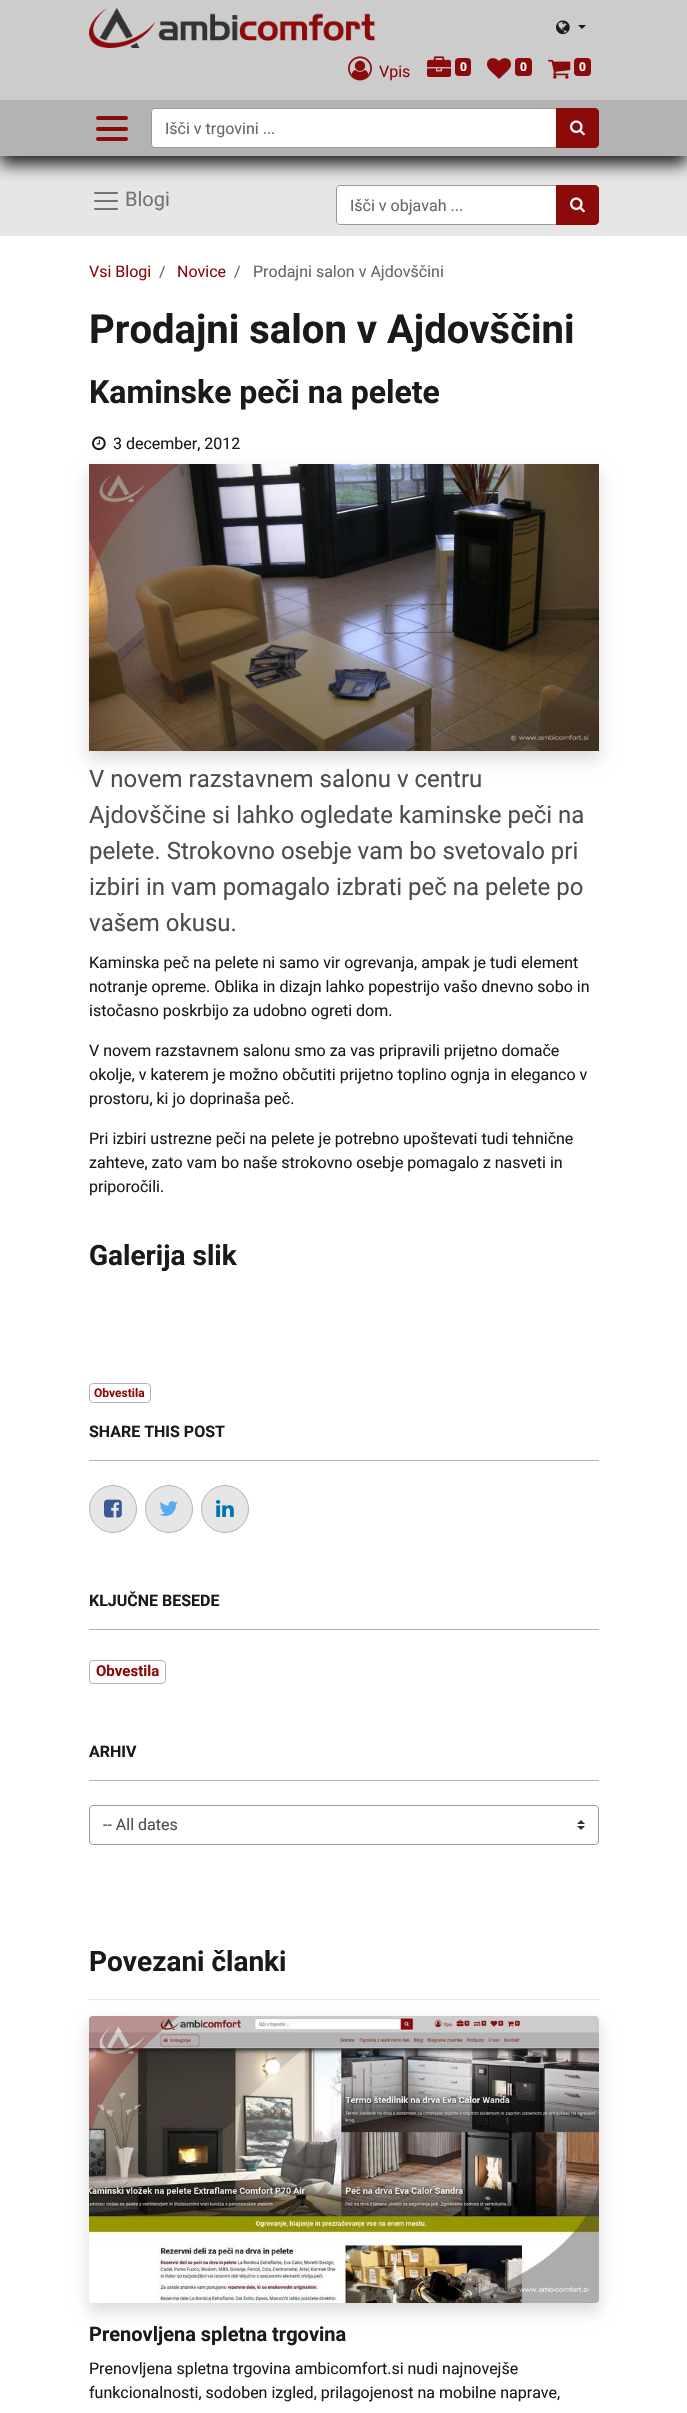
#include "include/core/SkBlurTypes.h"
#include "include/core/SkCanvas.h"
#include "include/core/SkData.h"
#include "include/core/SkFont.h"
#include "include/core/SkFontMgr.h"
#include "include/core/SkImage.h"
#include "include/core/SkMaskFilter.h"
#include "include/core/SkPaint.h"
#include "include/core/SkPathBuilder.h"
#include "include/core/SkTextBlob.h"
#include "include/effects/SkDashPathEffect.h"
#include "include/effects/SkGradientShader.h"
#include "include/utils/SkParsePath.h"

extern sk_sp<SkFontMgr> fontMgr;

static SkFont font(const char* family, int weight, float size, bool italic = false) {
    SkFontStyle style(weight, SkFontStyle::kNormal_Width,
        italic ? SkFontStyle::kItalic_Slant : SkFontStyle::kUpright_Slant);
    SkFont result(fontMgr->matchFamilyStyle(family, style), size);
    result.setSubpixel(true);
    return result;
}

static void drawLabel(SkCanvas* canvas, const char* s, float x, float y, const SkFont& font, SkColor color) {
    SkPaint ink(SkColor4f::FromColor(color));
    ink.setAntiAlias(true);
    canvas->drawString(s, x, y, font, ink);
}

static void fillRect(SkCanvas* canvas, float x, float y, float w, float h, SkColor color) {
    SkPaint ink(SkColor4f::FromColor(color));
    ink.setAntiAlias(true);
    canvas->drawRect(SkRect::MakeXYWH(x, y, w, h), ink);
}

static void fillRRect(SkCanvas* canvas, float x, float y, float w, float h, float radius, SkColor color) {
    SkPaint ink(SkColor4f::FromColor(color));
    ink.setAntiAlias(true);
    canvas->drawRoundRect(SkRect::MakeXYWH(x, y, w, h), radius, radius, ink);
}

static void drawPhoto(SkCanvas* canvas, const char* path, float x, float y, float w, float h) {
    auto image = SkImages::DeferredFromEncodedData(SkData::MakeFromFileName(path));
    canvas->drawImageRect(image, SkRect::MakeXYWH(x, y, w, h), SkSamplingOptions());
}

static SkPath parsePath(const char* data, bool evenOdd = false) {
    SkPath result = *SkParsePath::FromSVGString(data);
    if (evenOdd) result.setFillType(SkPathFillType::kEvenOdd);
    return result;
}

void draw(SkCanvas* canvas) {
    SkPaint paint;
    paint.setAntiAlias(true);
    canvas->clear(0xFFFFFFFF);
    fillRect(canvas, 0, 156, 687, 80, 0xFFE6E6E6);
    paint.setColor(0xFFFFFFFF);
    canvas->drawPath(parsePath("M340 185.5H556.5V224.5H340C338 224.5 336.5 223 336.5 221V189C336.5 187 338 185.5 340 185.5Z"), paint);
    paint.setStroke(true);
    paint.setStrokeWidth(1);
    paint.setColor(0xFF999999);
    canvas->drawPath(parsePath("M340 185.5H556.5V224.5H340C338 224.5 336.5 223 336.5 221V189C336.5 187 338 185.5 340 185.5Z"), paint);
    paint.setStroke(false);
    paint.setColor(0xFF8C0A0A);
    canvas->drawPath(parsePath("M556.5 185.5H595C597 185.5 598.5 187 598.5 189V221C598.5 223 597 224.5 595 224.5H556.5Z"), paint);
    paint.setStroke(true);
    canvas->drawPath(parsePath("M556.5 185.5H595C597 185.5 598.5 187 598.5 189V221C598.5 223 597 224.5 595 224.5H556.5Z"), paint);
    paint.setStroke(false);
    paint.setColor(0xFF1A1A1A);
    paint.setMaskFilter(SkMaskFilter::MakeBlur(kNormal_SkBlurStyle, 8));
    canvas->drawRect(SkRect::MakeXYWH(0, 8, 687, 156), paint);
    paint.setMaskFilter(nullptr);
    fillRect(canvas, 0, 0, 687, 100, 0xFFCCCCCC);
    drawPhoto(canvas, "assets/img1.png", 89, 8, 286, 40);
    drawPhoto(canvas, "assets/img2.png", 556, 20, 14, 15);
    canvas->drawPath(parsePath("M578 25H586L582 29Z"), paint);
    drawPhoto(canvas, "assets/img3.png", 348, 56, 24, 25);
    SkFont font1 = font("Roboto", 400, 16);
    drawLabel(canvas, "Vpis", 379, 77, font1, 0xFF8C0A0A);
    drawPhoto(canvas, "assets/img4.png", 427, 56, 24, 21);
    fillRRect(canvas, 455, 58, 16, 18, 4, 0xFF8C0A0A);
    SkFont font2 = font("Roboto", 700, 12);
    drawLabel(canvas, "0", 460, 71, font2, 0xFFFFFFFF);
    drawPhoto(canvas, "assets/img5.png", 487, 58, 24, 21);
    fillRRect(canvas, 515, 58, 17, 18, 4, 0xFF8C0A0A);
    drawLabel(canvas, "0", 520, 71, font2, 0xFFFFFFFF);
    drawPhoto(canvas, "assets/img6.png", 548, 59, 23, 20);
    fillRRect(canvas, 574, 58, 17, 18, 4, 0xFF8C0A0A);
    drawLabel(canvas, "0", 579, 71, font2, 0xFFFFFFFF);
    fillRect(canvas, 0, 100, 687, 56, 0xFFB3B3B3);
    fillRRect(canvas, 96, 116, 32, 4, 2, 0xFF8C0A0A);
    fillRRect(canvas, 96, 127, 32, 4, 2, 0xFF8C0A0A);
    fillRRect(canvas, 96, 137, 32, 4, 2, 0xFF8C0A0A);
    paint.setColor(0xFFFFFFFF);
    canvas->drawPath(parsePath("M155 108.5H556.5V147.5H155C153 147.5 151.5 146 151.5 144V112C151.5 110 153 108.5 155 108.5Z"), paint);
    paint.setStroke(true);
    paint.setColor(0xFF999999);
    canvas->drawPath(parsePath("M155 108.5H556.5V147.5H155C153 147.5 151.5 146 151.5 144V112C151.5 110 153 108.5 155 108.5Z"), paint);
    drawLabel(canvas, "Išči v trgovini ...", 165, 134, font1, 0xFF666666);
    paint.setStroke(false);
    paint.setColor(0xFF8C0A0A);
    canvas->drawPath(parsePath("M556.5 108.5H595C597 108.5 598.5 110 598.5 112V144C598.5 146 597 147.5 595 147.5H556.5Z"), paint);
    paint.setStroke(true);
    canvas->drawPath(parsePath("M556.5 108.5H595C597 108.5 598.5 110 598.5 112V144C598.5 146 597 147.5 595 147.5H556.5Z"), paint);
    drawPhoto(canvas, "assets/img7.png", 570, 120, 15, 16);
    drawPhoto(canvas, "assets/img8.png", 94, 192, 24, 18);
    SkFont font3 = font("Roboto", 400, 20);
    drawLabel(canvas, "Blogi", 125, 206, font3, 0xFF737373);
    drawLabel(canvas, "Išči v objavah ...", 350, 211, font1, 0xFF666666);
    drawPhoto(canvas, "assets/img7.png", 570, 197, 15, 16);
    drawLabel(canvas, "Vsi Blogi", 89, 277, font1, 0xFF8C0A0A);
    drawLabel(canvas, "/", 159, 277, font1, 0xFF666666);
    drawLabel(canvas, "Novice", 177, 277, font1, 0xFF8C0A0A);
    drawLabel(canvas, "/", 234, 277, font1, 0xFF666666);
    drawLabel(canvas, "Prodajni salon v Ajdovščini", 253, 277, font1, 0xFF666666);
    SkFont font4 = font("Roboto", 700, 40);
    drawLabel(canvas, "Prodajni salon v Ajdovščini", 89, 343, font4, 0xFF1A1A1A);
    SkFont font5 = font("Roboto", 700, 32);
    drawLabel(canvas, "Kaminske peči na pelete", 89, 403, font5, 0xFF1A1A1A);
    drawPhoto(canvas, "assets/img9.png", 92, 436, 14, 15);
    drawLabel(canvas, "3 december, 2012", 113, 449, font1, 0xFF1A1A1A);
    paint.setStroke(false);
    paint.setColor(0x26000000);
    paint.setMaskFilter(SkMaskFilter::MakeBlur(kNormal_SkBlurStyle, 8));
    canvas->drawRect(SkRect::MakeXYWH(89, 472, 510, 287), paint);
    paint.setMaskFilter(nullptr);
    drawPhoto(canvas, "assets/img10.png", 89, 464, 510, 287);
    SkFont font6 = font("Roboto", 400, 24);
    drawLabel(canvas, "V novem razstavnem salonu v centru", 89, 787, font6, 0xFF4D4D4D);
    drawLabel(canvas, "Ajdovščine si lahko ogledate kaminske peči na", 89, 823, font6, 0xFF4D4D4D);
    drawLabel(canvas, "pelete. Strokovno osebje vam bo svetovalo pri", 89, 859, font6, 0xFF4D4D4D);
    drawLabel(canvas, "izbiri in vam pomagalo izbrati peč na pelete po", 89, 895, font6, 0xFF4D4D4D);
    drawLabel(canvas, "vašem okusu.", 89, 931, font6, 0xFF4D4D4D);
    drawLabel(canvas, "Kaminska peč na pelete ni samo vir ogrevanja, ampak je tudi element", 89, 968, font1, 0xFF1A1A1A);
    drawLabel(canvas, "notranje opreme. Oblika in dizajn lahko popestrijo vašo dnevno sobo in", 89, 992, font1, 0xFF1A1A1A);
    drawLabel(canvas, "istočasno poskrbijo za udobno ogreti dom.", 89, 1016, font1, 0xFF1A1A1A);
    drawLabel(canvas, "V novem razstavnem salonu smo za vas pripravili prijetno domače", 89, 1056, font1, 0xFF1A1A1A);
    drawLabel(canvas, "okolje, v katerem je možno občutiti prijetno toplino ognja in eleganco v", 89, 1080, font1, 0xFF1A1A1A);
    drawLabel(canvas, "prostoru, ki jo doprinaša peč.", 89, 1104, font1, 0xFF1A1A1A);
    drawLabel(canvas, "Pri izbiri ustrezne peči na pelete je potrebno upoštevati tudi tehnične", 89, 1144, font1, 0xFF1A1A1A);
    drawLabel(canvas, "zahteve, zato vam bo naše strokovno osebje pomagalo z nasveti in", 89, 1168, font1, 0xFF1A1A1A);
    drawLabel(canvas, "priporočili.", 89, 1192, font1, 0xFF1A1A1A);
    SkFont font7 = font("Roboto", 700, 28);
    drawLabel(canvas, "Galerija slik", 89, 1265, font7, 0xFF1A1A1A);
    paint.setStroke(true);
    paint.setColor(0xFFB3B3B3);
    canvas->drawRoundRect(SkRect::MakeXYWH(89.5f, 1383.5f, 61, 19), 3.5f, 3.5f, paint);
    drawLabel(canvas, "Obvestila", 94, 1397, font2, 0xFF8C0A0A);
    fillRect(canvas, 89, 1460, 510, 1, 0xFFB3B3B3);
    SkFont font8 = font("Roboto", 700, 16);
    drawLabel(canvas, "SHARE THIS POST", 89, 1437, font8, 0xFF1A1A1A);
    paint.setStroke(false);
    paint.setColor(0xFFE6E6E6);
    canvas->drawCircle(113, 1509, 23.5f, paint);
    paint.setStroke(true);
    paint.setColor(0xFFB3B3B3);
    canvas->drawCircle(113, 1509, 23.5f, paint);
    drawPhoto(canvas, "assets/img11.png", 104, 1499, 18, 19);
    paint.setStroke(false);
    paint.setColor(0xFFE6E6E6);
    canvas->drawCircle(169, 1509, 23.5f, paint);
    paint.setStroke(true);
    paint.setColor(0xFFB3B3B3);
    canvas->drawCircle(169, 1509, 23.5f, paint);
    drawPhoto(canvas, "assets/img12.png", 159, 1501, 19, 15);
    paint.setStroke(false);
    paint.setColor(0xFFE6E6E6);
    canvas->drawCircle(225, 1509, 23.5f, paint);
    paint.setStroke(true);
    paint.setColor(0xFFB3B3B3);
    canvas->drawCircle(225, 1509, 23.5f, paint);
    drawPhoto(canvas, "assets/img13.png", 216, 1499, 18, 18);
    fillRect(canvas, 89, 1629, 510, 1, 0xFFB3B3B3);
    drawLabel(canvas, "KLJUČNE BESEDE", 89, 1606, font8, 0xFF1A1A1A);
    canvas->drawRoundRect(SkRect::MakeXYWH(89.5f, 1660.5f, 76, 23), 3.5f, 3.5f, paint);
    SkFont font9 = font("Roboto", 700, 15);
    drawLabel(canvas, "Obvestila", 96, 1676, font9, 0xFF8C0A0A);
    fillRect(canvas, 89, 1780, 510, 1, 0xFFB3B3B3);
    drawLabel(canvas, "ARHIV", 89, 1757, font8, 0xFF1A1A1A);
    drawPhoto(canvas, "assets/img14.png", 577, 1820, 8, 10);
    paint.setColor(0xFF999999);
    canvas->drawRoundRect(SkRect::MakeXYWH(89.5f, 1805.5f, 509, 39), 3.5f, 3.5f, paint);
    drawLabel(canvas, "-- All dates", 103, 1830, font1, 0xFF4D4D4D);
    drawLabel(canvas, "Povezani članki", 89, 1971, font7, 0xFF1A1A1A);
    fillRect(canvas, 89, 1999, 510, 1, 0xFFE6E6E6);
    paint.setStroke(false);
    paint.setColor(0x26000000);
    paint.setMaskFilter(SkMaskFilter::MakeBlur(kNormal_SkBlurStyle, 8));
    canvas->drawRoundRect(SkRect::MakeXYWH(89, 2024, 510, 287), 4, 4, paint);
    paint.setMaskFilter(nullptr);
    drawPhoto(canvas, "assets/img15.png", 89, 2016, 510, 287);
    SkFont font10 = font("Roboto", 700, 20);
    drawLabel(canvas, "Prenovljena spletna trgovina", 89, 2341, font10, 0xFF1A1A1A);
    drawLabel(canvas, "Prenovljena spletna trgovina ambicomfort.si nudi najnovejše", 89, 2374, font1, 0xFF1A1A1A);
    drawLabel(canvas, "funkcionalnosti, sodoben izgled, prilagojenost na mobilne naprave,", 89, 2398, font1, 0xFF1A1A1A);
}
